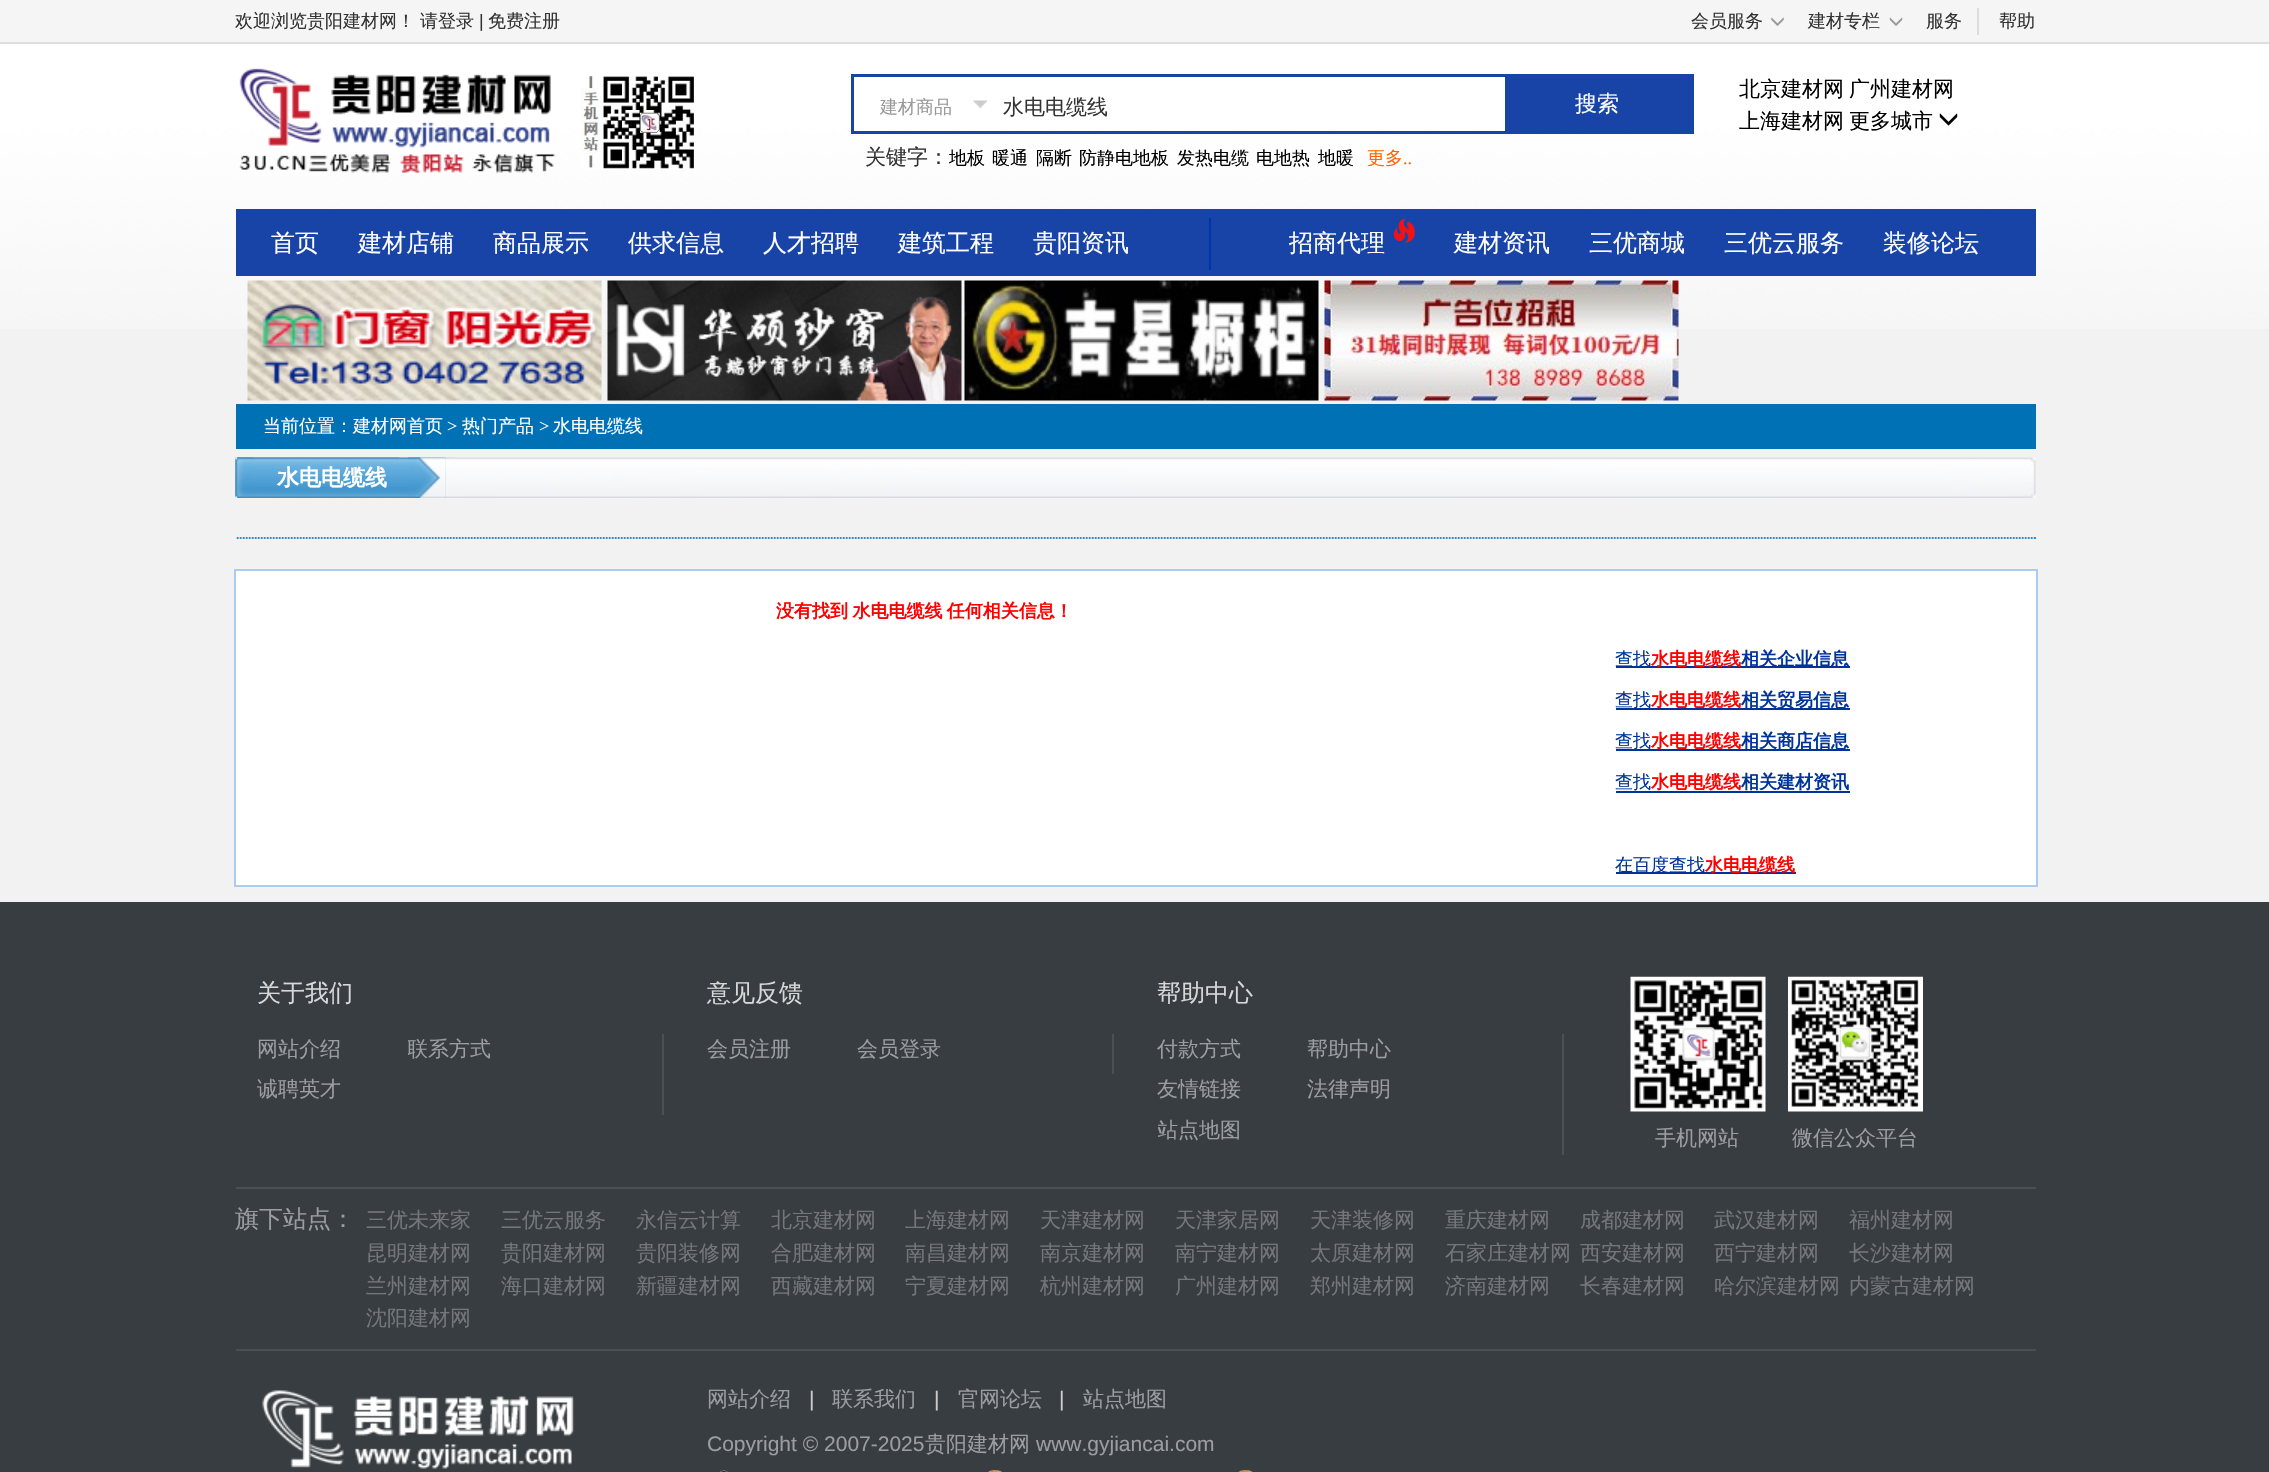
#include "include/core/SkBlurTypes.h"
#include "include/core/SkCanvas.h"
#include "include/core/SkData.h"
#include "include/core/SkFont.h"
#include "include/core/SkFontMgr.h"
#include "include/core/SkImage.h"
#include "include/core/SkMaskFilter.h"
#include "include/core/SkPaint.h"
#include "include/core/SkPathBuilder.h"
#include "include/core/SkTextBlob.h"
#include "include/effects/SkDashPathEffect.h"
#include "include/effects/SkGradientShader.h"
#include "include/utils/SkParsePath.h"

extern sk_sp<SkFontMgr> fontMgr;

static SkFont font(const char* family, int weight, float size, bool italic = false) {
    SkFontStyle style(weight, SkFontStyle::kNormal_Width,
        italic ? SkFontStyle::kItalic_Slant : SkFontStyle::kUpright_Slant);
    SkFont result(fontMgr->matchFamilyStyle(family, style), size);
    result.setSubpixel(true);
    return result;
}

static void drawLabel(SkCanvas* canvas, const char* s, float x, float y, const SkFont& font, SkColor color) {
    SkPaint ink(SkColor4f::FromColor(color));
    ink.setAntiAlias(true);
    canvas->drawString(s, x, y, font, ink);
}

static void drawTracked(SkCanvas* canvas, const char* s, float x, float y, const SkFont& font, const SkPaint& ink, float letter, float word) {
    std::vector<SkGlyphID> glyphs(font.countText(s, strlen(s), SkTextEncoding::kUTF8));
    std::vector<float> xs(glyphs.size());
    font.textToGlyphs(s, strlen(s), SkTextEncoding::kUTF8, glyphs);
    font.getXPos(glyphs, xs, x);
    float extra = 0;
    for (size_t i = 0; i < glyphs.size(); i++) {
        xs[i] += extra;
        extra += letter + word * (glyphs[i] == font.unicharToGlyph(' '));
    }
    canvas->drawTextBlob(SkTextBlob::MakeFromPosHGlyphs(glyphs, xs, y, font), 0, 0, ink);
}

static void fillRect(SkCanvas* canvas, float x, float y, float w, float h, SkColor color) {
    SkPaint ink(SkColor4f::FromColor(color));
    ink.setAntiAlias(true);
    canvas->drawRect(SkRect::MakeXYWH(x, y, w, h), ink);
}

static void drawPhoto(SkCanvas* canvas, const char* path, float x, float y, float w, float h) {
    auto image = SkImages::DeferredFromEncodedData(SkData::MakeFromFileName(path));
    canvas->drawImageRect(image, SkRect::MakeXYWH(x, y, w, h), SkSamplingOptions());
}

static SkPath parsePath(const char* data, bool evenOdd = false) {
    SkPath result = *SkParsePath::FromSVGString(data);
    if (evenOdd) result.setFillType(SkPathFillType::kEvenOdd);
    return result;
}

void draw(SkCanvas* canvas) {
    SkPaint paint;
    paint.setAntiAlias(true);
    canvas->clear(0xFFF2F2F2);
    fillRect(canvas, 0, 0, 2269, 42, 0xFFF5F5F5);
    SkFont font1 = font("WenQuanYi Zen Hei", 500, 18);
    drawLabel(canvas, "欢迎浏览贵阳建材网！", 235, 27, font1, 0xFF333333);
    drawLabel(canvas, "请登录", 420, 27, font1, 0xFF333333);
    SkFont font2 = font("Liberation Sans", 400, 18);
    drawLabel(canvas, "|", 479, 27, font2, 0xFF333333);
    drawLabel(canvas, "免费注册", 488, 27, font1, 0xFF333333);
    drawLabel(canvas, "会员服务", 1691, 27, font1, 0xFF333333);
    drawPhoto(canvas, "assets/img1.png", 1771, 17, 13, 9);
    drawLabel(canvas, "建材专栏", 1808, 27, font1, 0xFF333333);
    drawPhoto(canvas, "assets/img2.png", 1889, 17, 14, 9);
    fillRect(canvas, 1977, 8, 2, 27, 0xFFDDDDDD);
    drawLabel(canvas, "服务", 1926, 27, font1, 0xFF333333);
    drawLabel(canvas, "帮助", 1999, 27, font1, 0xFF333333);
    fillRect(canvas, 0, 42, 2269, 2, 0xFFDDDDDD);
    drawPhoto(canvas, "assets/img8.png", 0, 44, 2269, 285);
    drawPhoto(canvas, "assets/img3.png", 239, 68, 317, 105);
    drawPhoto(canvas, "assets/img4.png", 580, 76, 115, 93);
    paint.setStroke(true);
    paint.setStrokeWidth(3);
    paint.setColor(0xFF1844A7);
    canvas->drawRect(SkRect::MakeXYWH(852.5f, 75.5f, 840, 57), paint);
    drawPhoto(canvas, "assets/img5.png", 973, 100, 14, 8);
    drawLabel(canvas, "建材商品", 880, 113, font1, 0xFF999999);
    SkFont font3 = font("WenQuanYi Zen Hei", 500, 21);
    drawLabel(canvas, "水电电缆线", 1003, 114, font3, 0xFF333333);
    fillRect(canvas, 1505, 77, 186, 54, 0xFF1844A7);
    SkFont font4 = font("WenQuanYi Zen Hei", 500, 22);
    drawLabel(canvas, "搜索", 1575, 111, font4, 0xFFFFFFFF);
    drawLabel(canvas, "关键字：", 865, 164, font3, 0xFF333333);
    drawLabel(canvas, "地板", 949, 164, font1, 0xFF000000);
    drawLabel(canvas, "暖通", 992, 164, font1, 0xFF000000);
    drawLabel(canvas, "隔断", 1036, 164, font1, 0xFF000000);
    drawLabel(canvas, "防静电地板", 1079, 164, font1, 0xFF000000);
    drawLabel(canvas, "发热电缆", 1177, 164, font1, 0xFF000000);
    drawLabel(canvas, "电地热", 1256, 164, font1, 0xFF000000);
    drawLabel(canvas, "地暖", 1318, 164, font1, 0xFF000000);
    drawLabel(canvas, "更多", 1367, 164, font1, 0xFFFF6600);
    SkFont font5 = font("Liberation Serif", 400, 18);
    drawLabel(canvas, "..", 1403, 164, font5, 0xFFFF6600);
    drawLabel(canvas, "北京建材网", 1739, 96, font3, 0xFF000000);
    drawLabel(canvas, "广州建材网", 1849, 96, font3, 0xFF000000);
    drawLabel(canvas, "上海建材网", 1739, 128, font3, 0xFF000000);
    drawLabel(canvas, "更多城市", 1849, 128, font3, 0xFF000000);
    drawPhoto(canvas, "assets/img6.png", 1939, 113, 19, 13);
    fillRect(canvas, 236, 209, 1800, 67, 0xFF1844A7);
    SkFont font6 = font("WenQuanYi Zen Hei", 500, 24);
    drawLabel(canvas, "首页", 271, 251, font6, 0xFFFFFFFF);
    drawLabel(canvas, "建材店铺", 358, 251, font6, 0xFFFFFFFF);
    drawLabel(canvas, "商品展示", 493, 251, font6, 0xFFFFFFFF);
    drawLabel(canvas, "供求信息", 628, 251, font6, 0xFFFFFFFF);
    drawLabel(canvas, "人才招聘", 763, 251, font6, 0xFFFFFFFF);
    drawLabel(canvas, "建筑工程", 898, 251, font6, 0xFFFFFFFF);
    drawLabel(canvas, "贵阳资讯", 1033, 251, font6, 0xFFFFFFFF);
    fillRect(canvas, 1209, 218, 2, 52, 0xFF0033B2);
    drawLabel(canvas, "招商代理", 1289, 251, font6, 0xFFFFFFFF);
    drawPhoto(canvas, "assets/img7.png", 1393, 218, 22, 25);
    drawLabel(canvas, "建材资讯", 1454, 251, font6, 0xFFFFFFFF);
    drawLabel(canvas, "三优商城", 1589, 251, font6, 0xFFFFFFFF);
    drawLabel(canvas, "三优云服务", 1724, 251, font6, 0xFFFFFFFF);
    drawLabel(canvas, "装修论坛", 1883, 251, font6, 0xFFFFFFFF);
    drawPhoto(canvas, "assets/img9.png", 247, 280, 1432, 121);
    fillRect(canvas, 236, 404, 1800, 45, 0xFF0071B5);
    drawLabel(canvas, "当前位置：建材网首页", 263, 432, font1, 0xFFFFFFFF);
    drawLabel(canvas, ">", 447, 432, font5, 0xFFFFFFFF);
    drawLabel(canvas, "热门产品", 462, 432, font1, 0xFFFFFFFF);
    drawLabel(canvas, ">", 539, 432, font5, 0xFFFFFFFF);
    drawLabel(canvas, "水电电缆线", 553, 432, font1, 0xFFFFFFFF);
    drawPhoto(canvas, "assets/img10.png", 235, 457, 1760, 41);
    drawPhoto(canvas, "assets/img11.png", 235, 457, 23, 41);
    drawPhoto(canvas, "assets/img12.png", 235, 457, 19, 41);
    drawPhoto(canvas, "assets/img13.png", 408, 457, 38, 41);
    drawPhoto(canvas, "assets/img15.png", 445, 457, 5, 41);
    drawPhoto(canvas, "assets/img14.png", 408, 457, 38, 41);
    fillRect(canvas, 450, 457, 4, 1, 0xFFE1E1E1);
    drawPhoto(canvas, "assets/img16.png", 258, 457, 150, 41);
    SkFont font7 = font("WenQuanYi Zen Hei", 700, 22);
    drawLabel(canvas, "水电电缆线", 277, 485, font7, 0xFFFFFFFF);
    drawPhoto(canvas, "assets/img17.png", 1995, 457, 41, 41);
    fillRect(canvas, 236, 537, 1800, 2, 0xFF338CCC);
    paint.setStrokeWidth(1.5f);
    paint.setColor(0xFFEEEEEE);
    paint.setPathEffect(SkDashPathEffect::Make({{1.5f, 1.5f}}, 0));
    canvas->drawPath(parsePath("M235.5 538H2035.5"), paint);
    paint.setPathEffect(nullptr);
    fillRect(canvas, 234, 569, 1803, 2, 0xFFAACCEE);
    fillRect(canvas, 2036, 569, 2, 318, 0xFFAACCEE);
    fillRect(canvas, 234, 885, 1803, 2, 0xFFAACCEE);
    fillRect(canvas, 234, 569, 2, 318, 0xFFAACCEE);
    fillRect(canvas, 236, 571, 1800, 314, 0xFFFFFFFF);
    SkFont font8 = font("WenQuanYi Zen Hei", 700, 18);
    paint.setStroke(false);
    paint.setColor(0xFFFF0000);
    drawTracked(canvas, "没有找到 水电电缆线 任何相关信息！", 776, 617, font8, paint, 0, -1);
    fillRect(canvas, 1616, 666, 234, 2, 0xFF003399);
    drawLabel(canvas, "查找", 1615, 665, font1, 0xFF003399);
    drawLabel(canvas, "水电电缆线", 1651, 665, font8, 0xFFFF0000);
    drawLabel(canvas, "相关企业信息", 1741, 665, font8, 0xFF003399);
    fillRect(canvas, 1616, 708, 234, 2, 0xFF003399);
    drawLabel(canvas, "查找", 1615, 706, font1, 0xFF003399);
    drawLabel(canvas, "水电电缆线", 1651, 706, font8, 0xFFFF0000);
    drawLabel(canvas, "相关贸易信息", 1741, 706, font8, 0xFF003399);
    fillRect(canvas, 1616, 749, 234, 2, 0xFF003399);
    drawLabel(canvas, "查找", 1615, 747, font1, 0xFF003399);
    drawLabel(canvas, "水电电缆线", 1651, 747, font8, 0xFFFF0000);
    drawLabel(canvas, "相关商店信息", 1741, 747, font8, 0xFF003399);
    drawLabel(canvas, "查找", 1615, 788, font1, 0xFF003399);
    fillRect(canvas, 1616, 791, 234, 2, 0xFF003399);
    drawLabel(canvas, "水电电缆线", 1651, 788, font8, 0xFFFF0000);
    drawLabel(canvas, "相关建材资讯", 1741, 788, font8, 0xFF003399);
    fillRect(canvas, 1616, 872, 180, 2, 0xFF003399);
    drawLabel(canvas, "在百度查找", 1615, 871, font1, 0xFF003399);
    drawLabel(canvas, "水电电缆线", 1705, 871, font8, 0xFFFF0000);
    fillRect(canvas, 0, 902, 2269, 570, 0xFF373D41);
    fillRect(canvas, 236, 1187, 1800, 2, 0xFF4B5054);
    drawLabel(canvas, "关于我们", 257, 1001, font6, 0xFFD7D8D9);
    fillRect(canvas, 662, 1034, 2, 81, 0xFF4B5054);
    drawLabel(canvas, "网站介绍", 257, 1056, font3, 0xFF9B9EA0);
    canvas->save();
    canvas->clipRect(SkRect::MakeXYWH(408, 1034, 150, 31));
    drawLabel(canvas, "联系方式", 407, 1056, font3, 0xFF9B9EA0);
    canvas->restore();
    drawLabel(canvas, "诚聘英才", 257, 1096, font3, 0xFF9B9EA0);
    drawLabel(canvas, "意见反馈", 707, 1001, font6, 0xFFD7D8D9);
    fillRect(canvas, 1112, 1034, 2, 40, 0xFF4B5054);
    drawLabel(canvas, "会员注册", 707, 1056, font3, 0xFF9B9EA0);
    drawLabel(canvas, "会员登录", 857, 1056, font3, 0xFF9B9EA0);
    drawLabel(canvas, "帮助中心", 1157, 1001, font6, 0xFFD7D8D9);
    fillRect(canvas, 1562, 1034, 2, 121, 0xFF4B5054);
    drawLabel(canvas, "付款方式", 1157, 1056, font3, 0xFF9B9EA0);
    drawLabel(canvas, "帮助中心", 1307, 1056, font3, 0xFF9B9EA0);
    drawLabel(canvas, "友情链接", 1157, 1096, font3, 0xFF9B9EA0);
    drawLabel(canvas, "法律声明", 1307, 1096, font3, 0xFF9B9EA0);
    canvas->save();
    canvas->clipRect(SkRect::MakeXYWH(1158, 1115, 150, 31));
    drawLabel(canvas, "站点地图", 1157, 1137, font3, 0xFF9B9EA0);
    canvas->restore();
    drawPhoto(canvas, "assets/img18.png", 1630, 976, 136, 136);
    drawLabel(canvas, "手机网站", 1655, 1145, font3, 0xFF9B9EA0);
    drawPhoto(canvas, "assets/img19.png", 1788, 976, 135, 136);
    drawLabel(canvas, "微信公众平台", 1792, 1145, font3, 0xFF9B9EA0);
    fillRect(canvas, 236, 1349, 1800, 2, 0xFF4B5054);
    drawLabel(canvas, "旗下站点：", 235, 1227, font6, 0xFF9B9EA0);
    drawLabel(canvas, "三优未来家", 366, 1227, font3, 0xFF73777A);
    drawLabel(canvas, "三优云服务", 501, 1227, font3, 0xFF73777A);
    drawLabel(canvas, "永信云计算", 636, 1227, font3, 0xFF73777A);
    drawLabel(canvas, "北京建材网", 771, 1227, font3, 0xFF73777A);
    drawLabel(canvas, "上海建材网", 905, 1227, font3, 0xFF73777A);
    drawLabel(canvas, "天津建材网", 1040, 1227, font3, 0xFF73777A);
    drawLabel(canvas, "天津家居网", 1175, 1227, font3, 0xFF73777A);
    drawLabel(canvas, "天津装修网", 1310, 1227, font3, 0xFF73777A);
    drawLabel(canvas, "重庆建材网", 1445, 1227, font3, 0xFF73777A);
    drawLabel(canvas, "成都建材网", 1580, 1227, font3, 0xFF73777A);
    drawLabel(canvas, "武汉建材网", 1714, 1227, font3, 0xFF73777A);
    drawLabel(canvas, "福州建材网", 1849, 1227, font3, 0xFF73777A);
    drawLabel(canvas, "昆明建材网", 366, 1260, font3, 0xFF73777A);
    drawLabel(canvas, "贵阳建材网", 501, 1260, font3, 0xFF73777A);
    drawLabel(canvas, "贵阳装修网", 636, 1260, font3, 0xFF73777A);
    drawLabel(canvas, "合肥建材网", 771, 1260, font3, 0xFF73777A);
    drawLabel(canvas, "南昌建材网", 905, 1260, font3, 0xFF73777A);
    drawLabel(canvas, "南京建材网", 1040, 1260, font3, 0xFF73777A);
    drawLabel(canvas, "南宁建材网", 1175, 1260, font3, 0xFF73777A);
    drawLabel(canvas, "太原建材网", 1310, 1260, font3, 0xFF73777A);
    drawLabel(canvas, "石家庄建材网", 1445, 1260, font3, 0xFF73777A);
    drawLabel(canvas, "西安建材网", 1580, 1260, font3, 0xFF73777A);
    drawLabel(canvas, "西宁建材网", 1714, 1260, font3, 0xFF73777A);
    drawLabel(canvas, "长沙建材网", 1849, 1260, font3, 0xFF73777A);
    drawLabel(canvas, "兰州建材网", 366, 1293, font3, 0xFF73777A);
    drawLabel(canvas, "海口建材网", 501, 1293, font3, 0xFF73777A);
    drawLabel(canvas, "新疆建材网", 636, 1293, font3, 0xFF73777A);
    drawLabel(canvas, "西藏建材网", 771, 1293, font3, 0xFF73777A);
    drawLabel(canvas, "宁夏建材网", 905, 1293, font3, 0xFF73777A);
    drawLabel(canvas, "杭州建材网", 1040, 1293, font3, 0xFF73777A);
    drawLabel(canvas, "广州建材网", 1175, 1293, font3, 0xFF73777A);
    drawLabel(canvas, "郑州建材网", 1310, 1293, font3, 0xFF73777A);
    drawLabel(canvas, "济南建材网", 1445, 1293, font3, 0xFF73777A);
    drawLabel(canvas, "长春建材网", 1580, 1293, font3, 0xFF73777A);
    drawLabel(canvas, "哈尔滨建材网", 1714, 1293, font3, 0xFF73777A);
    drawLabel(canvas, "内蒙古建材网", 1849, 1293, font3, 0xFF73777A);
    drawLabel(canvas, "沈阳建材网", 366, 1325, font3, 0xFF73777A);
    drawPhoto(canvas, "assets/img20.png", 262, 1390, 312, 79);
    drawLabel(canvas, "网站介绍", 707, 1406, font3, 0xFF9B9EA0);
    SkFont font9 = font("Liberation Sans", 400, 21);
    drawLabel(canvas, "|", 809, 1406, font9, 0xFFCCCCCC);
    drawLabel(canvas, "联系我们", 832, 1406, font3, 0xFF9B9EA0);
    drawLabel(canvas, "|", 934, 1406, font9, 0xFFCCCCCC);
    drawLabel(canvas, "官网论坛", 958, 1406, font3, 0xFF9B9EA0);
    drawLabel(canvas, "|", 1059, 1406, font9, 0xFFCCCCCC);
    drawLabel(canvas, "站点地图", 1083, 1406, font3, 0xFF9B9EA0);
    drawLabel(canvas, "Copyright © 2007-2025", 707, 1451, font9, 0xFF9B9EA0);
    drawLabel(canvas, "贵阳建材网", 925, 1451, font3, 0xFF9B9EA0);
    drawLabel(canvas, "www.gyjiancai.com", 1036, 1451, font9, 0xFF9B9EA0);
    drawPhoto(canvas, "assets/img21.png", 719, 1470, 9, 2);
    drawPhoto(canvas, "assets/img22.png", 988, 1470, 14, 2);
    drawPhoto(canvas, "assets/img23.png", 1238, 1470, 15, 2);
}
